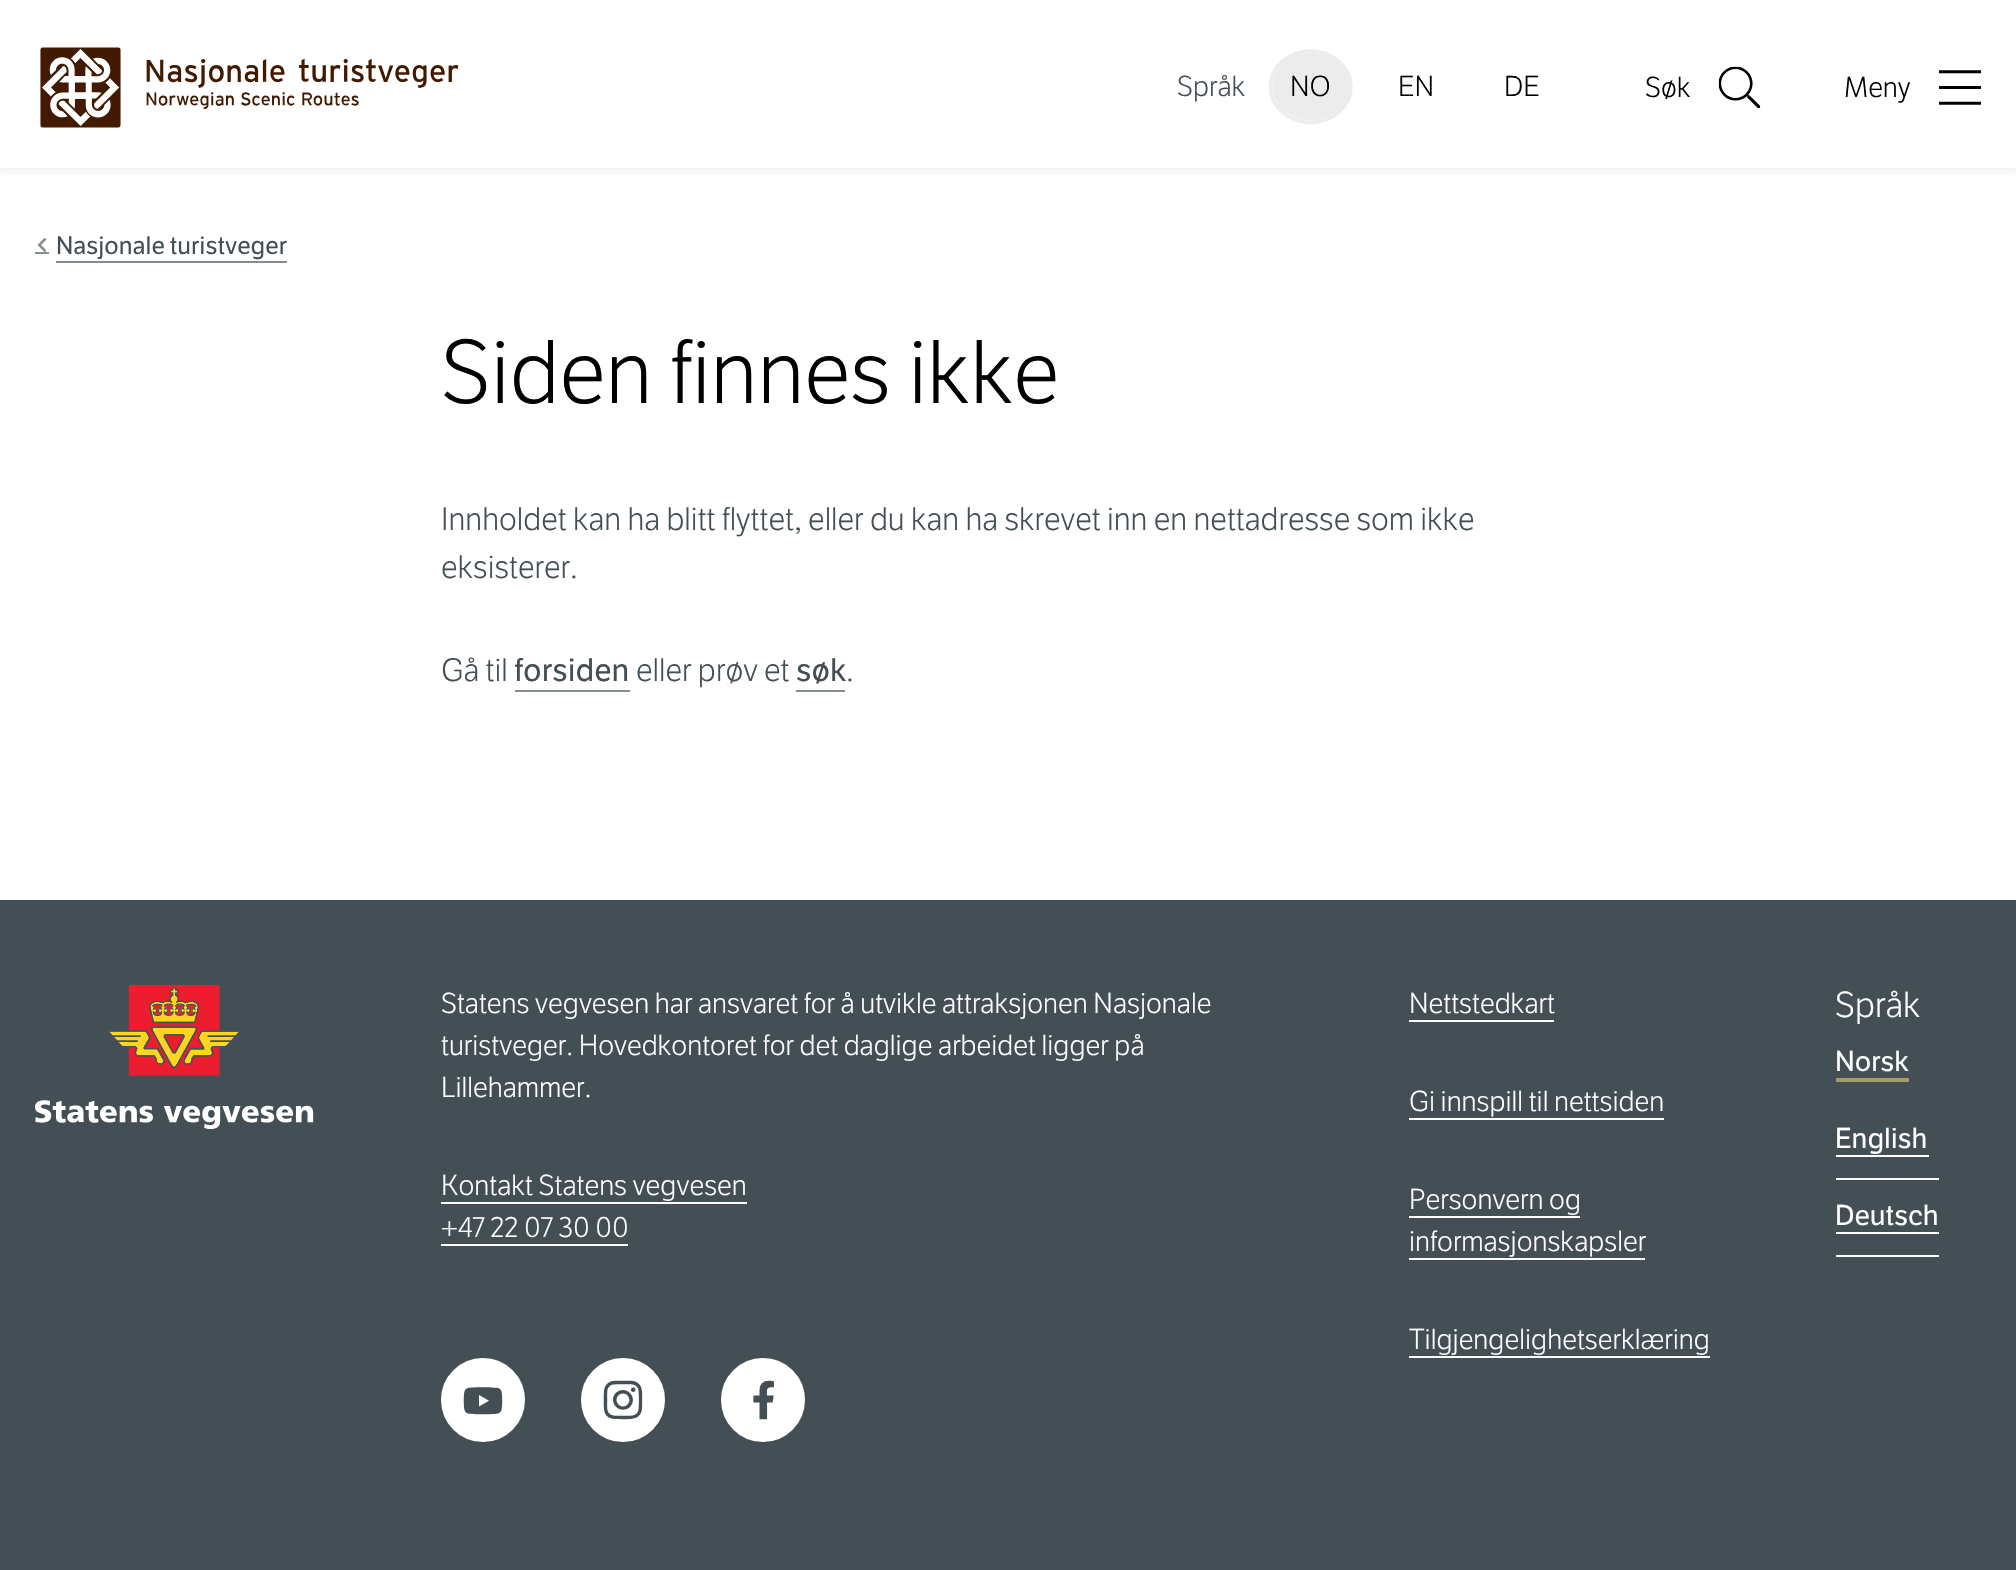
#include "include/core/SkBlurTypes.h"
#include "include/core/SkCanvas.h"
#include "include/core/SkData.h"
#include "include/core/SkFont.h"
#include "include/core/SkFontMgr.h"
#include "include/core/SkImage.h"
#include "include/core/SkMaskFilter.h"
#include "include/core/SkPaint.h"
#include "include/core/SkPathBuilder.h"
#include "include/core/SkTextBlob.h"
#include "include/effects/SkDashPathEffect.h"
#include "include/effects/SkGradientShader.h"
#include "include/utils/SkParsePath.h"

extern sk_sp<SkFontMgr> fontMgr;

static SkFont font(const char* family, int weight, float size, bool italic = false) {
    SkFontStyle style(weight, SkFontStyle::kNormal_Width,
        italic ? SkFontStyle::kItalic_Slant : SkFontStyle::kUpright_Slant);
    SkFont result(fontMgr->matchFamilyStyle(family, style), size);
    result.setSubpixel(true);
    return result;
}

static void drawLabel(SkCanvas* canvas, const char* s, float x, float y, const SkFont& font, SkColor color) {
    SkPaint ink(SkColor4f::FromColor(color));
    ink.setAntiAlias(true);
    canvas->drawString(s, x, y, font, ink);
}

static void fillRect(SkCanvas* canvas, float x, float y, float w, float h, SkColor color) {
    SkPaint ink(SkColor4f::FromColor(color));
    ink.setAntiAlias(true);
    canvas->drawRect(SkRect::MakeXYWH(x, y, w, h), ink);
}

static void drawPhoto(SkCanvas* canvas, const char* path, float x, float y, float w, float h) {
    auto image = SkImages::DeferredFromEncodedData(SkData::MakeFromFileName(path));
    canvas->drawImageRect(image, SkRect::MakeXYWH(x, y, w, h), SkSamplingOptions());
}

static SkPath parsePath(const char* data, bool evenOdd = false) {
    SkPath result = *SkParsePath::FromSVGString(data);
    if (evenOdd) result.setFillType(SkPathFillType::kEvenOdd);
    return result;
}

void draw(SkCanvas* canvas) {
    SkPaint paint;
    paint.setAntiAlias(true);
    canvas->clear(0xFFFFFFFF);
    canvas->save();
    canvas->clipRect(SkRect::MakeXYWH(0, 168, 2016, 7));
    paint.setColor(0x14353E43);
    paint.setMaskFilter(SkMaskFilter::MakeBlur(kNormal_SkBlurStyle, 5));
    canvas->drawRect(SkRect::MakeXYWH(-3, -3, 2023, 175), paint);
    paint.setMaskFilter(nullptr);
    canvas->restore();
    drawPhoto(canvas, "assets/img1.png", 40, 47, 419, 81);
    SkFont font1 = font("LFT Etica", 300, 28);
    drawLabel(canvas, "Språk", 1177, 96, font1, 0xFF444F55);
    paint.setStroke(true);
    paint.setStrokeWidth(3.5f);
    paint.setColor(0xFFECECEC);
    canvas->drawPath(parsePath("M1311 51C1333 51 1351 67 1351 86.5C1351 106.5 1333 122.5 1311 122.5C1288.5 122.5 1270.5 106.5 1270.5 86.5C1270.5 67 1288.5 51 1311 51Z"), paint);
    paint.setStroke(false);
    canvas->drawOval(SkRect::MakeXYWH(1272.5f, 52.5f, 77, 68), paint);
    drawLabel(canvas, "NO", 1290, 96, font1, 0xFF000000);
    drawLabel(canvas, "EN", 1398, 96, font1, 0xFF000000);
    drawLabel(canvas, "DE", 1504, 96, font1, 0xFF000000);
    drawLabel(canvas, "Søk", 1645, 97, font1, 0xFF000000);
    drawPhoto(canvas, "assets/img2.png", 1718, 66, 43, 43);
    drawLabel(canvas, "Meny", 1844, 97, font1, 0xFF000000);
    drawPhoto(canvas, "assets/img3.png", 1939, 70, 42, 35);
    fillRect(canvas, 35, 252, 14, 2, 0xFF858D90);
    fillRect(canvas, 56, 261, 231, 2, 0xFF858D90);
    drawPhoto(canvas, "assets/img4.png", 37, 238, 10, 14);
    SkFont font2 = font("LFT Etica", 400, 24.5f);
    drawLabel(canvas, "Nasjonale turistveger", 56, 254, font2, 0xFF444F55);
    SkFont font3 = font("LFT Etica", 300, 87.5f);
    drawLabel(canvas, "Siden finnes ikke", 441, 403, font3, 0xFF000000);
    SkFont font4 = font("LFT Etica", 300, 31.5f);
    drawLabel(canvas, "Innholdet kan ha blitt flyttet, eller du kan ha skrevet inn en nettadresse som ikke", 441, 530, font4, 0xFF444F55);
    drawLabel(canvas, "eksisterer.", 441, 578, font4, 0xFF444F55);
    drawLabel(canvas, "Gå til", 441, 681, font4, 0xFF444F55);
    SkFont font5 = font("LFT Etica", 400, 31.5f);
    drawLabel(canvas, "forsiden", 514, 681, font5, 0xFF444F55);
    fillRect(canvas, 515, 690, 115, 2, 0xFF858D90);
    drawLabel(canvas, "eller prøv et", 636, 681, font4, 0xFF444F55);
    drawLabel(canvas, "søk", 796, 681, font5, 0xFF444F55);
    fillRect(canvas, 796, 690, 49, 2, 0xFF858D90);
    drawLabel(canvas, ".", 846, 681, font4, 0xFF444F55);
    fillRect(canvas, 0, 900, 2016, 670, 0xFF444F55);
    drawPhoto(canvas, "assets/img5.png", 35, 984, 279, 145);
    drawLabel(canvas, "Statens vegvesen har ansvaret for å utvikle attraksjonen Nasjonale", 441, 1013, font1, 0xFFFFFFFF);
    drawLabel(canvas, "turistveger. Hovedkontoret for det daglige arbeidet ligger på", 441, 1055, font1, 0xFFFFFFFF);
    drawLabel(canvas, "Lillehammer.", 441, 1097, font1, 0xFFFFFFFF);
    drawLabel(canvas, "Kontakt Statens vegvesen", 441, 1195, font1, 0xFFFFFFFF);
    fillRect(canvas, 441, 1202, 306, 2, 0xFFFFFFFF);
    drawLabel(canvas, "+47 22 07 30 00", 441, 1237, font1, 0xFFFFFFFF);
    fillRect(canvas, 441, 1244, 187, 2, 0xFFFFFFFF);
    paint.setColor(0xFFFFFFFF);
    canvas->drawCircle(483, 1400, 40, paint);
    paint.setStroke(true);
    paint.setStrokeWidth(4);
    canvas->drawCircle(483, 1400, 40, paint);
    drawPhoto(canvas, "assets/img6.png", 463, 1387, 40, 28);
    paint.setStroke(false);
    canvas->drawCircle(623, 1400, 40, paint);
    paint.setStroke(true);
    canvas->drawCircle(623, 1400, 40, paint);
    drawPhoto(canvas, "assets/img7.png", 603, 1380, 40, 40);
    paint.setStroke(false);
    canvas->drawCircle(763, 1400, 40, paint);
    paint.setStroke(true);
    canvas->drawCircle(763, 1400, 40, paint);
    drawPhoto(canvas, "assets/img8.png", 753, 1380, 21, 40);
    drawLabel(canvas, "Nettstedkart", 1409, 1013, font1, 0xFFFFFFFF);
    fillRect(canvas, 1409, 1020, 145, 2, 0xFFFFFFFF);
    drawLabel(canvas, "Gi innspill til nettsiden", 1409, 1111, font1, 0xFFFFFFFF);
    fillRect(canvas, 1409, 1118, 255, 2, 0xFFFFFFFF);
    drawLabel(canvas, "Personvern og", 1409, 1209, font1, 0xFFFFFFFF);
    fillRect(canvas, 1409, 1216, 171, 2, 0xFFFFFFFF);
    drawLabel(canvas, "informasjonskapsler", 1409, 1251, font1, 0xFFFFFFFF);
    fillRect(canvas, 1409, 1258, 236, 2, 0xFFFFFFFF);
    drawLabel(canvas, "Tilgjengelighetserklæring", 1409, 1349, font1, 0xFFFFFFFF);
    fillRect(canvas, 1409, 1356, 301, 2, 0xFFFFFFFF);
    SkFont font6 = font("LFT Etica", 300, 35);
    drawLabel(canvas, "Språk", 1835, 1017, font6, 0xFFFFFFFF);
    SkFont font7 = font("LFT Etica", 400, 28);
    drawLabel(canvas, "Norsk", 1835, 1071, font7, 0xFFFFFFFF);
    fillRect(canvas, 1836, 1078, 73, 4, 0xFFA49D6A);
    drawLabel(canvas, "English", 1835, 1148, font7, 0xFFFFFFFF);
    fillRect(canvas, 1836, 1178, 103, 2, 0xFFFFFFFF);
    fillRect(canvas, 1836, 1155, 93, 2, 0xFFFFFFFF);
    drawLabel(canvas, "Deutsch", 1835, 1225, font7, 0xFFFFFFFF);
    fillRect(canvas, 1836, 1255, 103, 2, 0xFFFFFFFF);
    fillRect(canvas, 1836, 1232, 103, 2, 0xFFFFFFFF);
}
